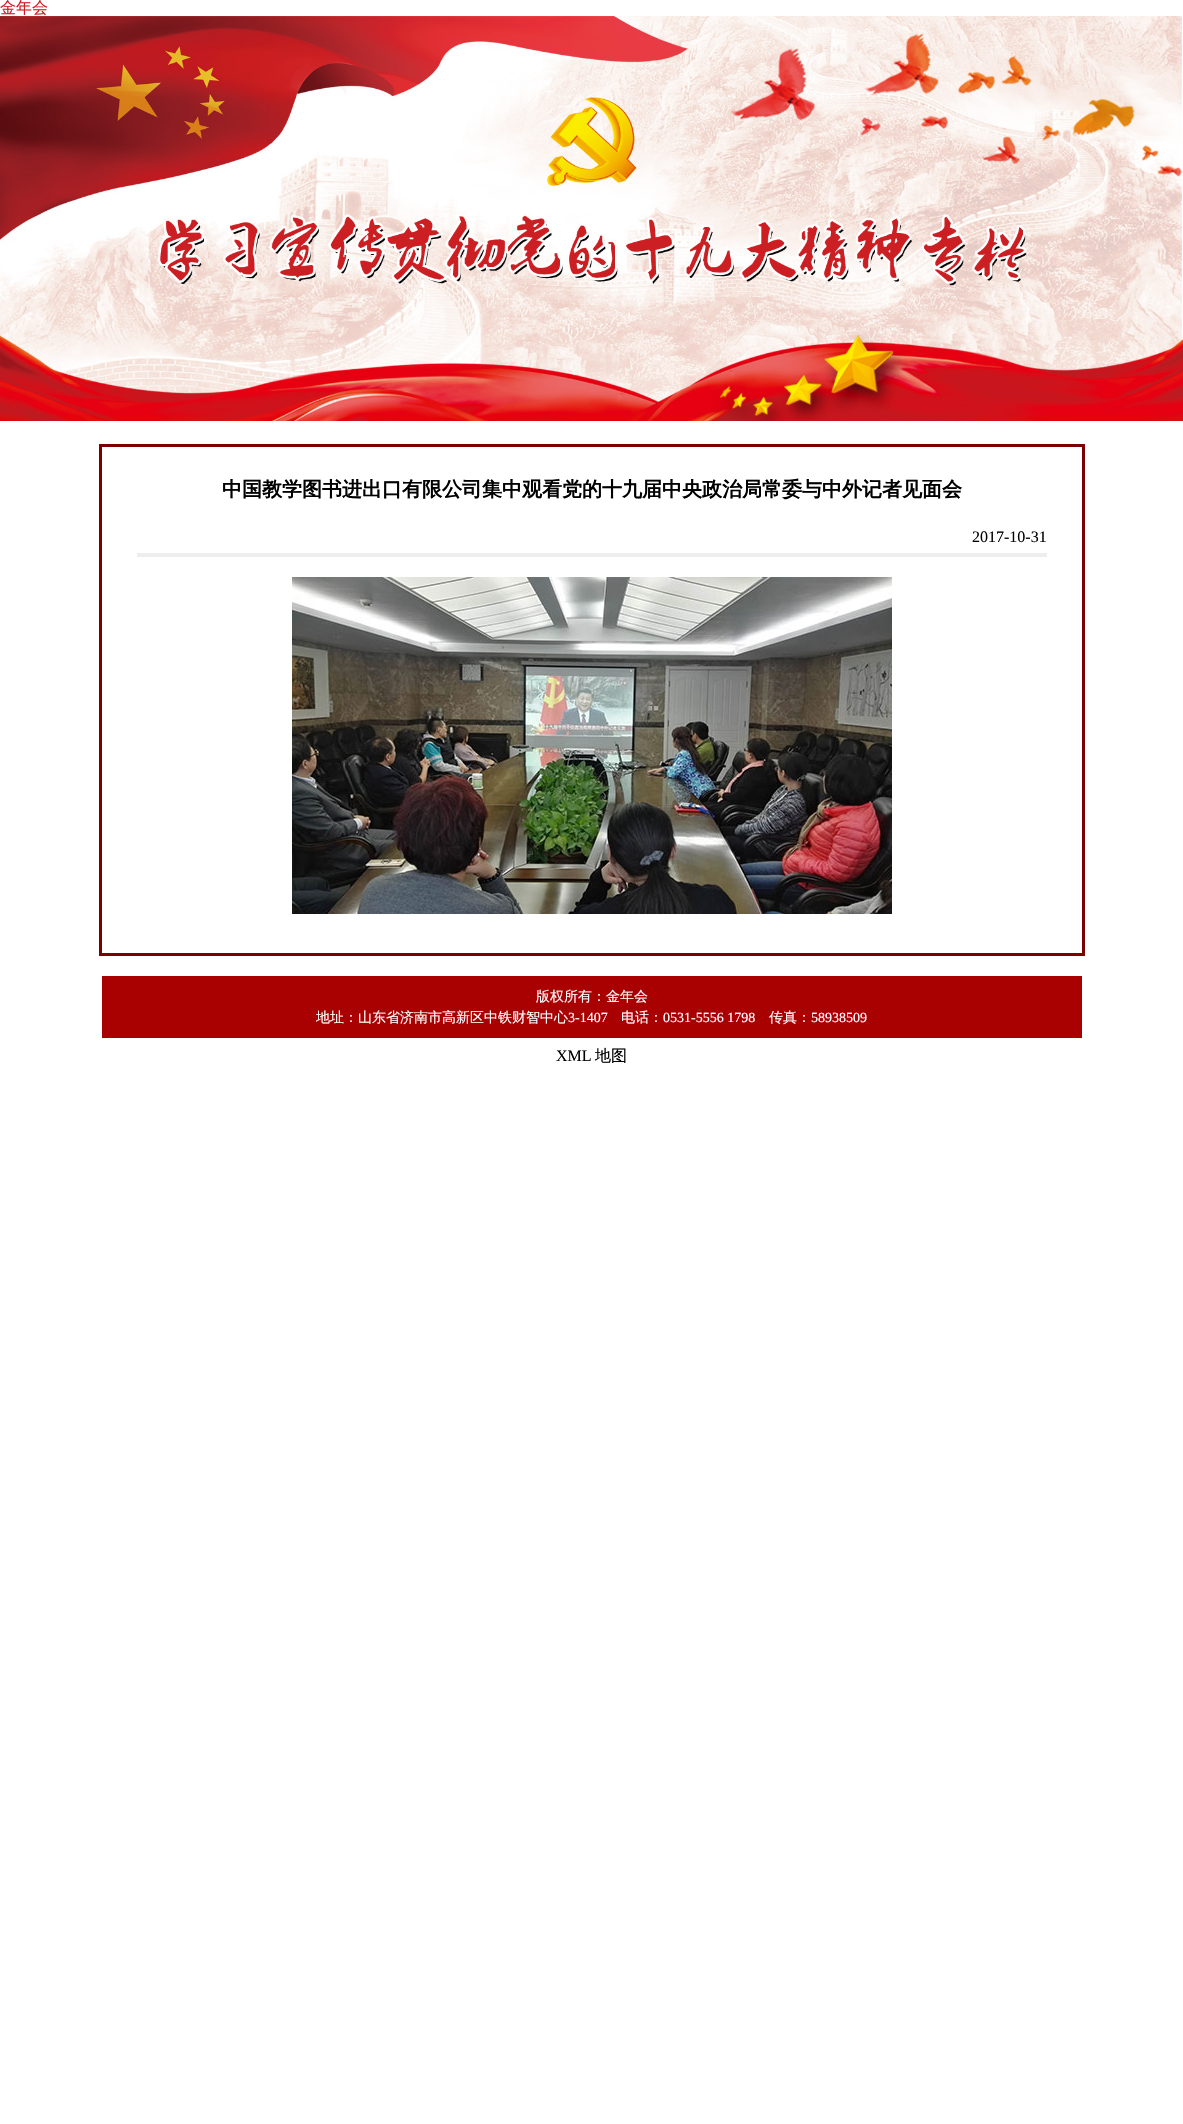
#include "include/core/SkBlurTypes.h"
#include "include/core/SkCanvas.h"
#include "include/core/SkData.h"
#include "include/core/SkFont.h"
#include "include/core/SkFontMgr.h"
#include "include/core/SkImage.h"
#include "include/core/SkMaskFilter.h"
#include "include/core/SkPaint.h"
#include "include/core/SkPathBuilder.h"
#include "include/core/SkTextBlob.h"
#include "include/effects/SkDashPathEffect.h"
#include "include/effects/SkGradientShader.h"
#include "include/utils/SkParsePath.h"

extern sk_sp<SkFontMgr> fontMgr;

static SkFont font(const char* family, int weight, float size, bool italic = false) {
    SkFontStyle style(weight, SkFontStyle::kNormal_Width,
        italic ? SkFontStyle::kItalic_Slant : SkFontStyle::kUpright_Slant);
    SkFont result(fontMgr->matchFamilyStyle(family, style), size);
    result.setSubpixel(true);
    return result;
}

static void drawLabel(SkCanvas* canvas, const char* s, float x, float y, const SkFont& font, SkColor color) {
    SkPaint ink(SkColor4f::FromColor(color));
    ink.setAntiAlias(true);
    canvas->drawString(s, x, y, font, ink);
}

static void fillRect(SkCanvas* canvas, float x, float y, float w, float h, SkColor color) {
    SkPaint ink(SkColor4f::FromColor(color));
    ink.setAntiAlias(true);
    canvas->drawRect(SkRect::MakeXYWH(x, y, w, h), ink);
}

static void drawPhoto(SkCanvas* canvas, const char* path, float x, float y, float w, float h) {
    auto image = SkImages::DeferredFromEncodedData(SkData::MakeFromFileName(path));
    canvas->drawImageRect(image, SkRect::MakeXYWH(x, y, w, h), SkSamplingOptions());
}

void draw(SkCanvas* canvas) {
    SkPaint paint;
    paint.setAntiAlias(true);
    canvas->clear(0xFFFFFFFF);
    SkFont font1 = font("WenQuanYi Zen Hei", 500, 16);
    drawLabel(canvas, "金年会", 0, 13, font1, 0xFFCC1F23);
    drawPhoto(canvas, "assets/img1.png", 0, 16, 1183, 405);
    paint.setStroke(true);
    paint.setStrokeWidth(3);
    paint.setColor(0xFF7D0000);
    canvas->drawRect(SkRect::MakeXYWH(100.5f, 445.5f, 983, 509), paint);
    SkFont font2 = font("WenQuanYi Zen Hei", 700, 20);
    drawLabel(canvas, "中国教学图书进出口有限公司集中观看党的十九届中央政治局常委与中外记者见面会", 222, 496, font2, 0xFF000000);
    fillRect(canvas, 137, 553, 910, 4, 0xFFEEEEEE);
    SkFont font3 = font("Liberation Serif", 400, 16);
    drawLabel(canvas, "2017-10-31", 972, 542, font3, 0xFF000000);
    drawPhoto(canvas, "assets/img2.png", 292, 577, 600, 337);
    fillRect(canvas, 102, 976, 980, 62, 0xFFA90002);
    SkFont font4 = font("WenQuanYi Zen Hei", 500, 14);
    drawLabel(canvas, "版权所有：金年会", 536, 1001, font4, 0xFFFFFFFF);
    drawLabel(canvas, "地址：山东省济南市高新区中铁财智中心", 316, 1022, font4, 0xFFFFFFFF);
    SkFont font5 = font("Liberation Serif", 400, 14);
    drawLabel(canvas, "3-1407", 568, 1022, font5, 0xFFFFFFFF);
    drawLabel(canvas, "电话：", 621, 1022, font4, 0xFFFFFFFF);
    drawLabel(canvas, "0531-5556 1798", 663, 1022, font5, 0xFFFFFFFF);
    drawLabel(canvas, "传真：", 769, 1022, font4, 0xFFFFFFFF);
    drawLabel(canvas, "58938509", 811, 1022, font5, 0xFFFFFFFF);
    drawLabel(canvas, "XML", 556, 1061, font3, 0xFF000000);
    drawLabel(canvas, "地图", 595, 1061, font1, 0xFF000000);
}
